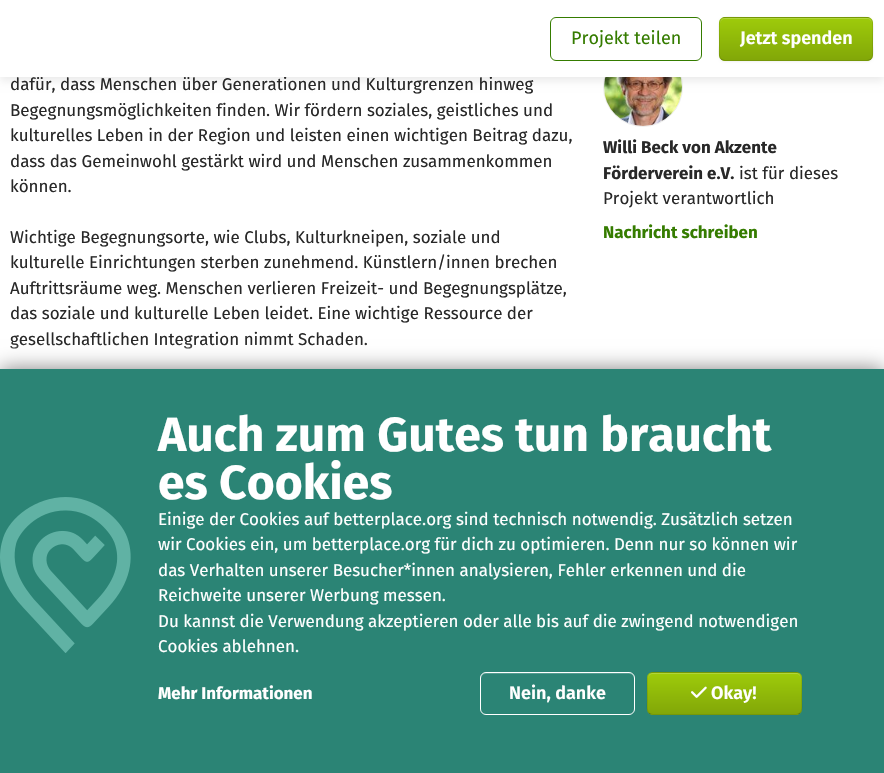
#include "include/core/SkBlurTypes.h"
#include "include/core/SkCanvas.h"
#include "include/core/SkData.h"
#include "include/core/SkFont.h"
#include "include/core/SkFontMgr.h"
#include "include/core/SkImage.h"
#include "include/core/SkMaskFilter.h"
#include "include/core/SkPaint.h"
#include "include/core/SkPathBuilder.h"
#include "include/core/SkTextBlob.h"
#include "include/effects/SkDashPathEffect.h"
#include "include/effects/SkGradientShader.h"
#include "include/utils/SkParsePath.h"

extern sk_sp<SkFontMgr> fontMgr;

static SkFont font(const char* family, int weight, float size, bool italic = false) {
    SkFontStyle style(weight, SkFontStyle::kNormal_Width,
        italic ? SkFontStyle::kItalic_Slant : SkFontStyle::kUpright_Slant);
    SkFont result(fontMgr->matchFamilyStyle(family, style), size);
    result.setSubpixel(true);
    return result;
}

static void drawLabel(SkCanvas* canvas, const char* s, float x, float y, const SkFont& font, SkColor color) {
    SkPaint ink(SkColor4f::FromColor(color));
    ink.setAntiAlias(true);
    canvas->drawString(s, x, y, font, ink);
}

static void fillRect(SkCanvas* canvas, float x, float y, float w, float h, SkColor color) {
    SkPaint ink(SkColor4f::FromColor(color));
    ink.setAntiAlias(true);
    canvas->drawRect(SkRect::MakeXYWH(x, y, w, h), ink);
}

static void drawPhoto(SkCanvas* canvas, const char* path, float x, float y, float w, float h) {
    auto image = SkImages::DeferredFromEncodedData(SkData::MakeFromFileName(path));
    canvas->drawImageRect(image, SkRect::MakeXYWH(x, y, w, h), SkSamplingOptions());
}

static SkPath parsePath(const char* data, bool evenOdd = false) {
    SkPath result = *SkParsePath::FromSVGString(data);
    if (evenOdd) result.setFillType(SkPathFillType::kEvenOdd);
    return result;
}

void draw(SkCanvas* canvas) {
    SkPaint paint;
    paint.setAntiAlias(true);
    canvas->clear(0xFFFFFFFF);
    paint.setStroke(true);
    paint.setStrokeWidth(1);
    paint.setColor(0xFFEEEEEE);
    canvas->drawCircle(643, 87, 39.5f, paint);
    drawPhoto(canvas, "assets/img1.png", 604, 77, 78, 49);
    paint.setStroke(false);
    paint.setColor(0x14000000);
    paint.setMaskFilter(SkMaskFilter::MakeBlur(kNormal_SkBlurStyle, 4));
    canvas->drawRect(SkRect::MakeXYWH(0, 4, 884, 77), paint);
    paint.setMaskFilter(nullptr);
    SkFont font1 = font("Fira Sans", 400, 16.95f);
    drawLabel(canvas, "dafür, dass Menschen über Generationen und Kulturgrenzen hinweg", 10, 90, font1, 0xFF282828);
    fillRect(canvas, 0, 0, 884, 77, 0xFFFFFFFF);
    paint.setStroke(true);
    paint.setColor(0xFF357C00);
    canvas->drawRoundRect(SkRect::MakeXYWH(550.5f, 17.5f, 151, 43), 5.5f, 5.5f, paint);
    SkFont font2 = font("Fira Sans", 400, 18);
    drawLabel(canvas, "Projekt teilen", 571, 44, font2, 0xFF357C00);
    paint.setStroke(false);
    paint.setColor(0x0D000000);
    paint.setMaskFilter(SkMaskFilter::MakeBlur(kNormal_SkBlurStyle, 1));
    canvas->drawRoundRect(SkRect::MakeXYWH(719, 18, 154, 44), 6, 6, paint);
    paint.setMaskFilter(nullptr);
    canvas->save();
    canvas->clipPath(parsePath("M725 17H867C870.5 17 873 19.5 873 23V55C873 58.5 870.5 61 867 61H725C721.5 61 719 58.5 719 55V23C719 19.5 721.5 17 725 17Z"), true);
    {
        const SkColor colors[] = {0xFF9ECB0A, 0xFF82A708};
        const float stops[] = {0, 1};
        const SkPoint ends[] = {{796, -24}, {796, 18}};
        paint.setShader(SkGradientShader::MakeLinear(ends, colors, stops, 2, SkTileMode::kClamp));
        paint.setAlpha(255);
    }
    canvas->drawRect(SkRect::MakeXYWH(719, 17, 154, 1), paint);
    {
        const SkColor colors[] = {0xFF9ECB0A, 0xFF82A708};
        const float stops[] = {0, 1};
        const SkPoint ends[] = {{796, 18}, {796, 60}};
        paint.setShader(SkGradientShader::MakeLinear(ends, colors, stops, 2, SkTileMode::kClamp));
        paint.setAlpha(255);
    }
    canvas->drawRect(SkRect::MakeXYWH(719, 18, 154, 42), paint);
    {
        const SkColor colors[] = {0xFF9ECB0A, 0xFF82A708};
        const float stops[] = {0, 1};
        const SkPoint ends[] = {{796, 60}, {796, 102}};
        paint.setShader(SkGradientShader::MakeLinear(ends, colors, stops, 2, SkTileMode::kClamp));
        paint.setAlpha(255);
    }
    canvas->drawRect(SkRect::MakeXYWH(719, 60, 154, 1), paint);
    canvas->restore();
    paint.setShader(nullptr);
    paint.setColor(0xFFB1D53B);
    canvas->drawPath(parsePath("M725 19H867C870 19 872 21 872 24V23C872 20 870 18 867 18H725C722 18 720 20 720 23V24C720 21 722 19 725 19Z"), paint);
    paint.setStroke(true);
    paint.setColor(0x40000000);
    canvas->drawPath(parsePath("M871 59C870 60 868.5 60.5 867 60.5H725C723.5 60.5 722 60 721 59"), paint);
    paint.setColor(0x1A000000);
    canvas->drawPath(parsePath("M721 59C718 55.5 719.5 48 719.5 44.5C719.5 12.5 714.5 17.5 748.5 17.5H843.5C877.5 17.5 872.5 12.5 872.5 44.5C872.5 48 874 55.5 871 59"), paint);
    SkFont font3 = font("Fira Sans", 600, 18);
    drawLabel(canvas, "Jetzt spenden", 740, 44, font3, 0xFFFFFFFF);
    drawLabel(canvas, "Begegnungsmöglichkeiten finden. Wir fördern soziales, geistliches und", 10, 116, font1, 0xFF282828);
    drawLabel(canvas, "kulturelles Leben in der Region und leisten einen wichtigen Beitrag dazu,", 10, 141, font1, 0xFF282828);
    drawLabel(canvas, "dass das Gemeinwohl gestärkt wird und Menschen zusammenkommen", 10, 167, font1, 0xFF282828);
    drawLabel(canvas, "können.", 10, 192, font1, 0xFF282828);
    drawLabel(canvas, "Wichtige Begegnungsorte, wie Clubs, Kulturkneipen, soziale und", 10, 243, font1, 0xFF282828);
    drawLabel(canvas, "kulturelle Einrichtungen sterben zunehmend. Künstlern/innen brechen", 10, 268, font1, 0xFF282828);
    drawLabel(canvas, "Auftrittsräume weg. Menschen verlieren Freizeit- und Begegnungsplätze,", 10, 294, font1, 0xFF282828);
    drawLabel(canvas, "das soziale und kulturelle Leben leidet. Eine wichtige Ressource der", 10, 319, font1, 0xFF282828);
    drawLabel(canvas, "gesellschaftlichen Integration nimmt Schaden.", 10, 345, font1, 0xFF282828);
    paint.setStroke(false);
    {
        const SkColor colors[] = {0x00FFFFFF, 0xFFFFFFFF};
        const float stops[] = {0, 0.9f};
        const SkPoint ends[] = {{294, 344}, {294, 367}};
        paint.setShader(SkGradientShader::MakeLinear(ends, colors, stops, 2, SkTileMode::kClamp));
        paint.setAlpha(255);
    }
    canvas->drawRect(SkRect::MakeXYWH(10, 344, 357, 5), paint);
    SkFont font4 = font("Fira Sans", 700, 16.95f);
    drawLabel(canvas, "Willi Beck von Akzente", 603, 153, font4, 0xFF282828);
    drawLabel(canvas, "Förderverein e.V.", 603, 179, font4, 0xFF282828);
    drawLabel(canvas, "ist für dieses", 739, 179, font1, 0xFF282828);
    drawLabel(canvas, "Projekt verantwortlich", 603, 204, font1, 0xFF282828);
    drawLabel(canvas, "Nachricht schreiben", 603, 238, font4, 0xFF357C00);
    paint.setShader(nullptr);
    paint.setColor(0x80000000);
    paint.setMaskFilter(SkMaskFilter::MakeBlur(kNormal_SkBlurStyle, 10));
    canvas->drawRect(SkRect::MakeXYWH(0, 369, 884, 404), paint);
    paint.setMaskFilter(nullptr);
    fillRect(canvas, 0, 369, 884, 404, 0xFF2B8475);
    drawPhoto(canvas, "assets/img2.png", 0, 497, 131, 156);
    SkFont font5 = font("Fira Sans", 700, 48);
    drawLabel(canvas, "Auch zum Gutes tun braucht", 158, 451, font5, 0xFFFFFFFF);
    drawLabel(canvas, "es Cookies", 158, 499, font5, 0xFFFFFFFF);
    drawLabel(canvas, "Einige der Cookies auf betterplace.org sind technisch notwendig. Zusätzlich setzen", 158, 525, font1, 0xFFFFFFFF);
    drawLabel(canvas, "wir Cookies ein, um betterplace.org für dich zu optimieren. Denn nur so können wir", 158, 550, font1, 0xFFFFFFFF);
    drawLabel(canvas, "das Verhalten unserer Besucher*innen analysieren, Fehler erkennen und die", 158, 576, font1, 0xFFFFFFFF);
    drawLabel(canvas, "Reichweite unserer Werbung messen.", 158, 601, font1, 0xFFFFFFFF);
    drawLabel(canvas, "Du kannst die Verwendung akzeptieren oder alle bis auf die zwingend notwendigen", 158, 627, font1, 0xFFFFFFFF);
    drawLabel(canvas, "Cookies ablehnen.", 158, 652, font1, 0xFFFFFFFF);
    drawLabel(canvas, "Mehr Informationen", 158, 699, font4, 0xFFFFFFFF);
    paint.setColor(0xFF559D91);
    canvas->drawPath(parsePath("M486 674H629C632 674 634 676 634 679V678C634 675 632 673 629 673H486C483 673 481 675 481 678V679C481 676 483 674 486 674Z"), paint);
    paint.setStroke(true);
    paint.setColor(0xFFFFFFFF);
    canvas->drawRoundRect(SkRect::MakeXYWH(480.5f, 672.5f, 154, 42), 5.5f, 5.5f, paint);
    drawLabel(canvas, "Nein, danke", 509, 699, font3, 0xFFFFFFFF);
    canvas->save();
    canvas->clipPath(parsePath("M653 672H796C799.5 672 802 674.5 802 678V709C802 712.5 799.5 715 796 715H653C649.5 715 647 712.5 647 709V678C647 674.5 649.5 672 653 672Z"), true);
    paint.setStroke(false);
    {
        const SkColor colors[] = {0xFF9ECB0A, 0xFF82A708};
        const float stops[] = {0, 1};
        const SkPoint ends[] = {{725, 632}, {725, 673}};
        paint.setShader(SkGradientShader::MakeLinear(ends, colors, stops, 2, SkTileMode::kClamp));
        paint.setAlpha(255);
    }
    canvas->drawRect(SkRect::MakeXYWH(647, 672, 155, 1), paint);
    {
        const SkColor colors[] = {0xFF9ECB0A, 0xFF82A708};
        const float stops[] = {0, 1};
        const SkPoint ends[] = {{725, 673}, {725, 714}};
        paint.setShader(SkGradientShader::MakeLinear(ends, colors, stops, 2, SkTileMode::kClamp));
        paint.setAlpha(255);
    }
    canvas->drawRect(SkRect::MakeXYWH(647, 673, 155, 41), paint);
    {
        const SkColor colors[] = {0xFF9ECB0A, 0xFF82A708};
        const float stops[] = {0, 1};
        const SkPoint ends[] = {{725, 714}, {725, 755}};
        paint.setShader(SkGradientShader::MakeLinear(ends, colors, stops, 2, SkTileMode::kClamp));
        paint.setAlpha(255);
    }
    canvas->drawRect(SkRect::MakeXYWH(647, 714, 155, 1), paint);
    canvas->restore();
    paint.setShader(nullptr);
    paint.setColor(0xFFB1D53B);
    canvas->drawPath(parsePath("M653 674H796C799 674 801 676 801 679V678C801 675 799 673 796 673H653C650 673 648 675 648 678V679C648 676 650 674 653 674Z"), paint);
    paint.setStroke(true);
    paint.setColor(0x40000000);
    canvas->drawPath(parsePath("M800 713C799 714 797.5 714.5 796 714.5H653C651.5 714.5 650 714 649 713"), paint);
    paint.setColor(0x1A000000);
    canvas->drawPath(parsePath("M649 713C646 709.5 647.5 702.5 647.5 698.5C647.5 667 643 672.5 677 672.5H772C806 672.5 801.5 667 801.5 698.5C801.5 702.5 803 709.5 800 713"), paint);
    drawPhoto(canvas, "assets/img3.png", 691, 686, 16, 12);
    drawLabel(canvas, "Okay!", 711, 699, font3, 0xFFFFFFFF);
}
